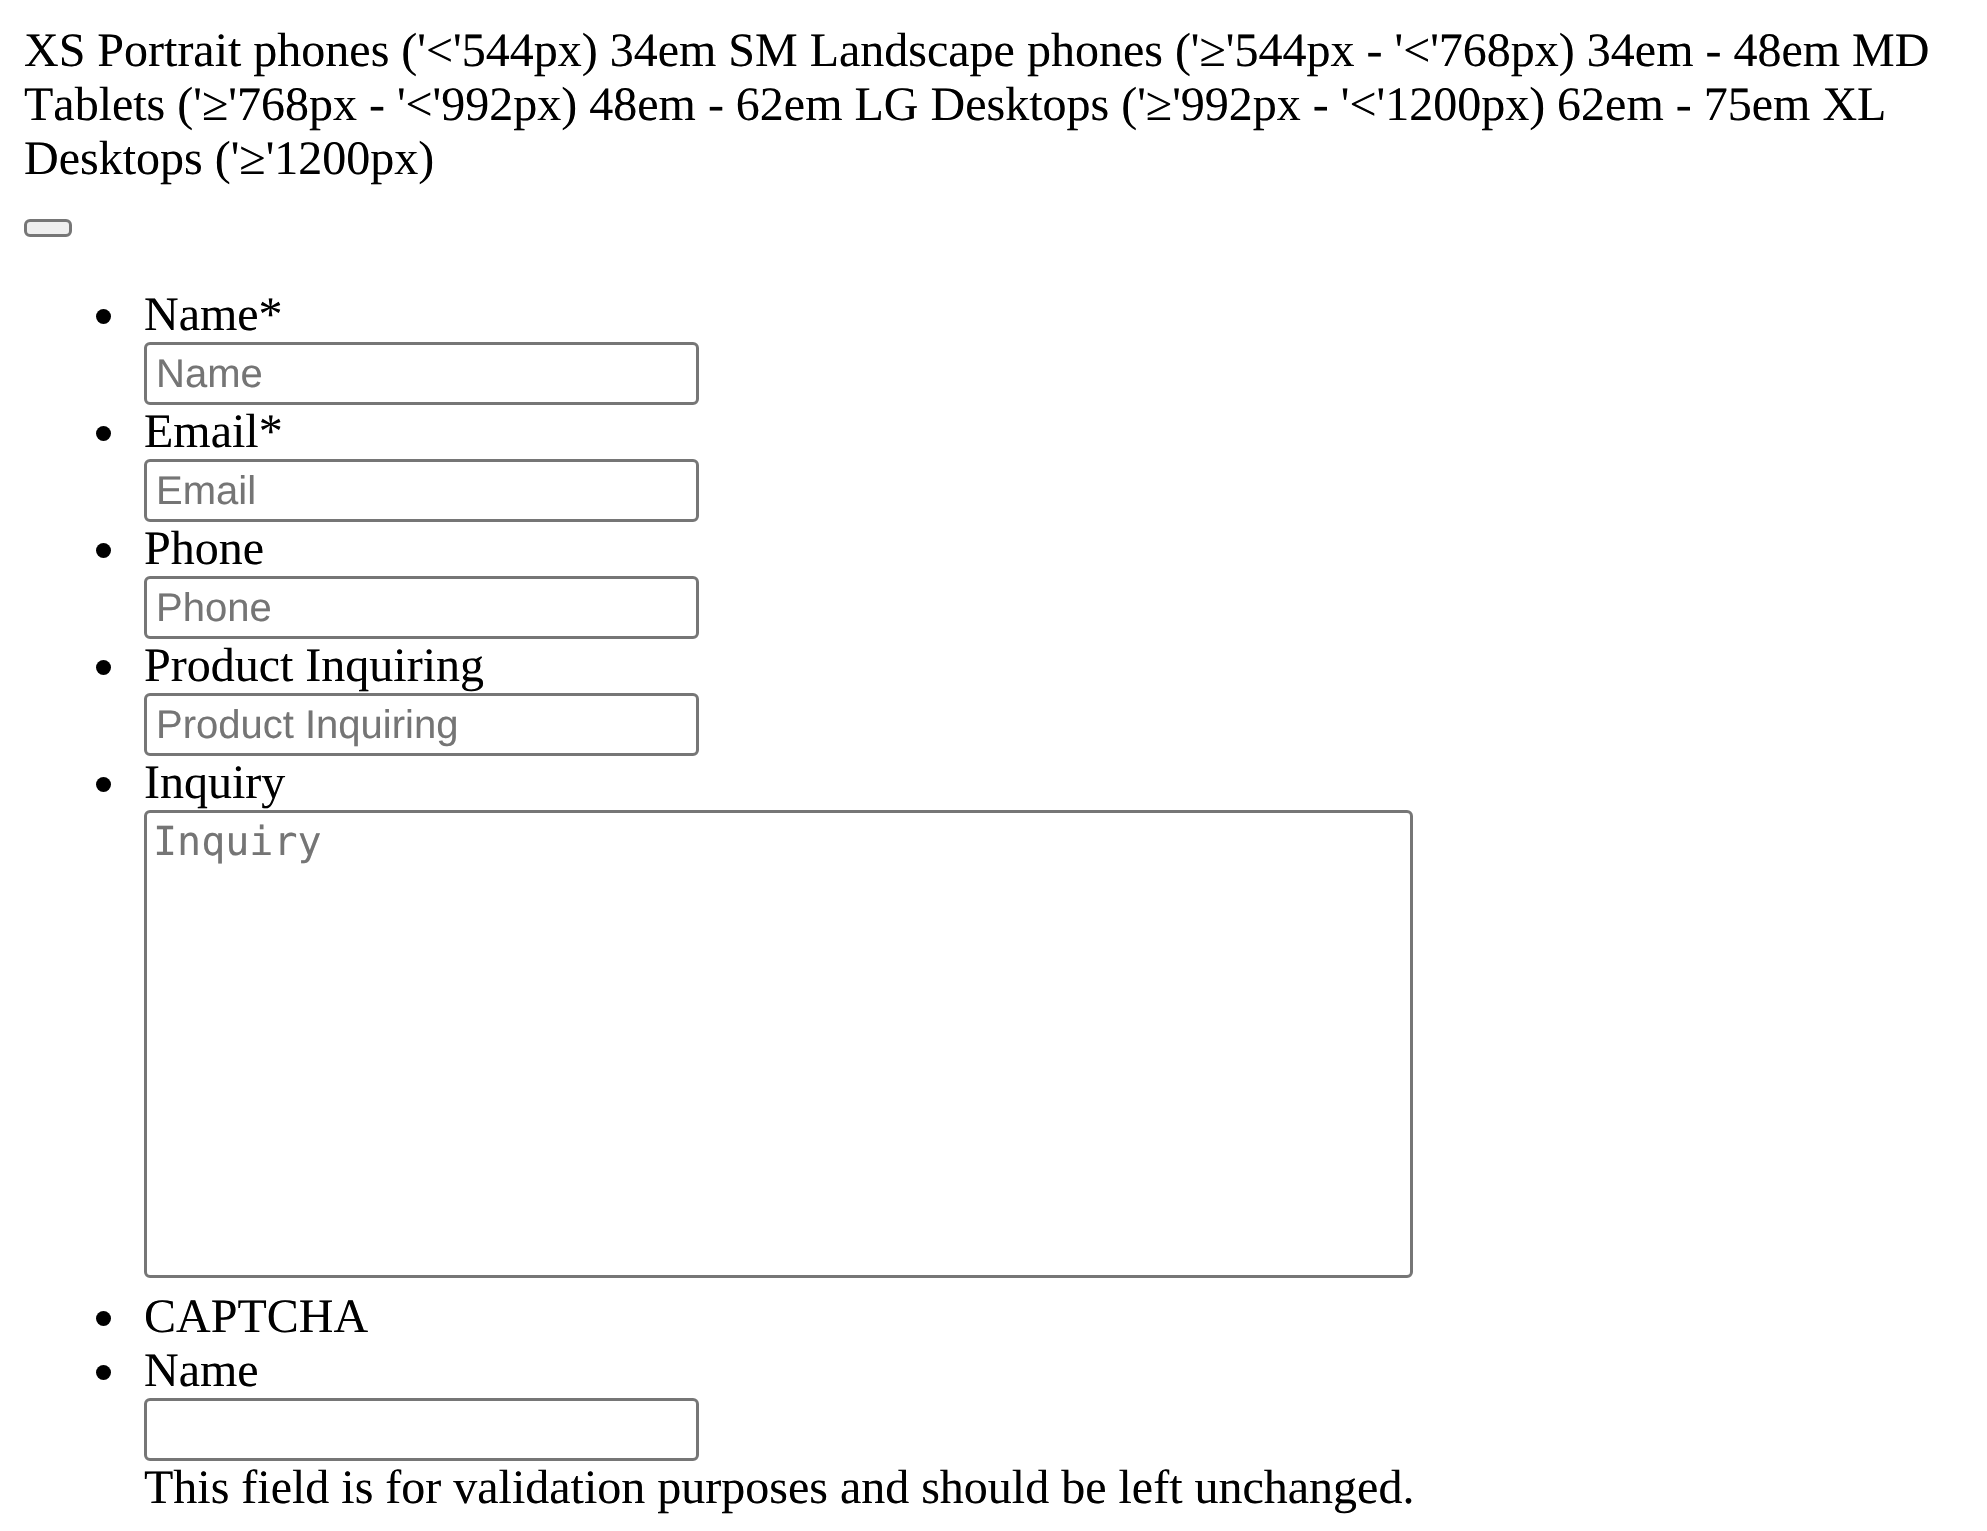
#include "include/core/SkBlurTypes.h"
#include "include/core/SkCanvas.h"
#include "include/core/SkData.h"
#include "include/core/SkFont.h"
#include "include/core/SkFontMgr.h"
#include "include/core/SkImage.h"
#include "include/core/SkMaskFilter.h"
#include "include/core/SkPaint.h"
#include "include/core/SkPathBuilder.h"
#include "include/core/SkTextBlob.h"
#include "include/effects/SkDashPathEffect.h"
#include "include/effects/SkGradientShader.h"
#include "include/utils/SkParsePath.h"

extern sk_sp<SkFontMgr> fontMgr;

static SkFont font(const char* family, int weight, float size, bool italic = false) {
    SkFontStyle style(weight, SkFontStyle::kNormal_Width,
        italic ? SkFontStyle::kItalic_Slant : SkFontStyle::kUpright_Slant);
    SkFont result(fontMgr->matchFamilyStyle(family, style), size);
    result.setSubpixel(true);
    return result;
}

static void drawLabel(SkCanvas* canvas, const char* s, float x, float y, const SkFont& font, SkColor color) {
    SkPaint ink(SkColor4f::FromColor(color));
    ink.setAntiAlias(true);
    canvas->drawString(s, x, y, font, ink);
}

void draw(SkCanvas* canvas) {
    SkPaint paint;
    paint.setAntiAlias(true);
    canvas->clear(0xFFFFFFFF);
    SkFont font1 = font("Liberation Serif", 400, 48);
    drawLabel(canvas, "XS Portrait phones ('<'544px) 34em SM Landscape phones ('≥'544px - '<'768px) 34em - 48em MD", 24, 66, font1, 0xFF000000);
    drawLabel(canvas, "Tablets ('≥'768px - '<'992px) 48em - 62em LG Desktops ('≥'992px - '<'1200px) 62em - 75em XL", 24, 120, font1, 0xFF000000);
    drawLabel(canvas, "Desktops ('≥'1200px)", 24, 174, font1, 0xFF000000);
    paint.setColor(0xFFEFEFEF);
    canvas->drawRoundRect(SkRect::MakeXYWH(25.5f, 220.5f, 45, 15), 4.5f, 4.5f, paint);
    paint.setStroke(true);
    paint.setStrokeWidth(3);
    paint.setColor(0xFF767676);
    canvas->drawRoundRect(SkRect::MakeXYWH(25.5f, 220.5f, 45, 15), 4.5f, 4.5f, paint);
    paint.setStroke(false);
    paint.setColor(0xFF000000);
    canvas->drawCircle(103.5f, 316.5f, 7.5f, paint);
    drawLabel(canvas, "Name*", 144, 330, font1, 0xFF000000);
    paint.setStroke(true);
    paint.setColor(0xFF767676);
    canvas->drawRoundRect(SkRect::MakeXYWH(145.5f, 343.5f, 552, 60), 4.5f, 4.5f, paint);
    SkFont font2 = font("Liberation Sans", 400, 40);
    drawLabel(canvas, "Name", 156, 387, font2, 0xFF757575);
    paint.setStroke(false);
    paint.setColor(0xFF000000);
    canvas->drawCircle(103.5f, 433.5f, 7.5f, paint);
    drawLabel(canvas, "Email*", 144, 447, font1, 0xFF000000);
    paint.setStroke(true);
    paint.setColor(0xFF767676);
    canvas->drawRoundRect(SkRect::MakeXYWH(145.5f, 460.5f, 552, 60), 4.5f, 4.5f, paint);
    drawLabel(canvas, "Email", 156, 504, font2, 0xFF757575);
    paint.setStroke(false);
    paint.setColor(0xFF000000);
    canvas->drawCircle(103.5f, 550.5f, 7.5f, paint);
    drawLabel(canvas, "Phone", 144, 564, font1, 0xFF000000);
    paint.setStroke(true);
    paint.setColor(0xFF767676);
    canvas->drawRoundRect(SkRect::MakeXYWH(145.5f, 577.5f, 552, 60), 4.5f, 4.5f, paint);
    drawLabel(canvas, "Phone", 156, 621, font2, 0xFF757575);
    paint.setStroke(false);
    paint.setColor(0xFF000000);
    canvas->drawCircle(103.5f, 667.5f, 7.5f, paint);
    drawLabel(canvas, "Product Inquiring", 144, 681, font1, 0xFF000000);
    paint.setStroke(true);
    paint.setColor(0xFF767676);
    canvas->drawRoundRect(SkRect::MakeXYWH(145.5f, 694.5f, 552, 60), 4.5f, 4.5f, paint);
    drawLabel(canvas, "Product Inquiring", 156, 738, font2, 0xFF757575);
    paint.setStroke(false);
    paint.setColor(0xFF000000);
    canvas->drawCircle(103.5f, 784.5f, 7.5f, paint);
    drawLabel(canvas, "Inquiry", 144, 798, font1, 0xFF000000);
    paint.setStroke(true);
    paint.setColor(0xFF767676);
    canvas->drawRoundRect(SkRect::MakeXYWH(145.5f, 811.5f, 1266, 465), 4.5f, 4.5f, paint);
    SkFont font3 = font("DejaVu Sans Mono", 400, 40);
    drawLabel(canvas, "Inquiry", 153, 855, font3, 0xFF757575);
    paint.setStroke(false);
    paint.setColor(0xFF000000);
    canvas->drawCircle(103.5f, 1318.5f, 7.5f, paint);
    drawLabel(canvas, "CAPTCHA", 144, 1332, font1, 0xFF000000);
    canvas->drawCircle(103.5f, 1372.5f, 7.5f, paint);
    drawLabel(canvas, "Name", 144, 1386, font1, 0xFF000000);
    paint.setStroke(true);
    paint.setColor(0xFF767676);
    canvas->drawRoundRect(SkRect::MakeXYWH(145.5f, 1399.5f, 552, 60), 4.5f, 4.5f, paint);
    drawLabel(canvas, "This field is for validation purposes and should be left unchanged.", 144, 1503, font1, 0xFF000000);
}
